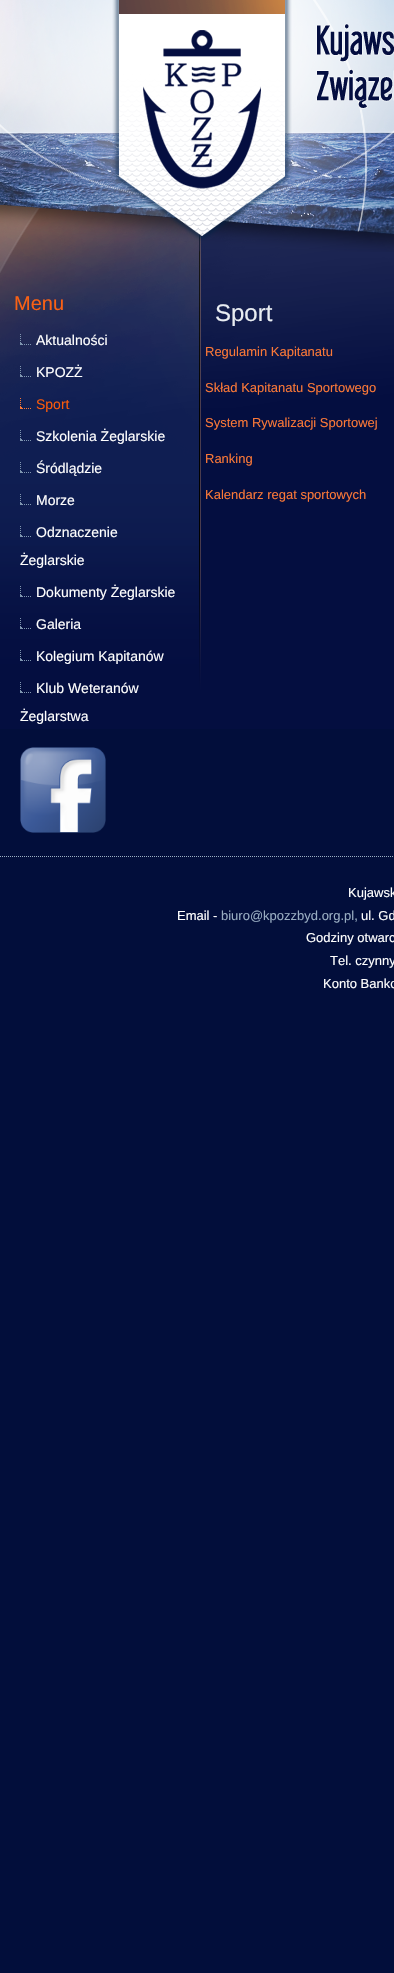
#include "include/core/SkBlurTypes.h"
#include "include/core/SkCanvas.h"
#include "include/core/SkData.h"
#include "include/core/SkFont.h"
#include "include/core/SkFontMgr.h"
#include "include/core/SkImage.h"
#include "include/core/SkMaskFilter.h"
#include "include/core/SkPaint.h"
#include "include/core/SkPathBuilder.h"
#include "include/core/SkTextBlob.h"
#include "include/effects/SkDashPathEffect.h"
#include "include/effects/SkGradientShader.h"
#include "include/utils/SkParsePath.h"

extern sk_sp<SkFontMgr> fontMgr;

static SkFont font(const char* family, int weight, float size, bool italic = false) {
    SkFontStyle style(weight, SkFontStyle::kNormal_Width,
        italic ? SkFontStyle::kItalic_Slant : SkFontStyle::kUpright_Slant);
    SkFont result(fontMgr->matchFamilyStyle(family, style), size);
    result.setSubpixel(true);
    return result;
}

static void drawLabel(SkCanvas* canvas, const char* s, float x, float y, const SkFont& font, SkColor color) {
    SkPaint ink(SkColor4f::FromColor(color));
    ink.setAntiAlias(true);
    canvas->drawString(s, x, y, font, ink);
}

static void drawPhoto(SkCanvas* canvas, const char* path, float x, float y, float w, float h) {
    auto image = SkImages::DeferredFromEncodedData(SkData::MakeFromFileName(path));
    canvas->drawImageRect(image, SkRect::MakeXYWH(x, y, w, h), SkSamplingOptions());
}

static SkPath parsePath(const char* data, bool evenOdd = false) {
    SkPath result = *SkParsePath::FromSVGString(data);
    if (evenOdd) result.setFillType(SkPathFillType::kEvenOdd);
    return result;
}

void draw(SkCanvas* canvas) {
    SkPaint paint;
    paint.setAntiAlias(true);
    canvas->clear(0xFF020E3B);
    drawPhoto(canvas, "assets/img1.png", 0, 204, 394, 525);
    drawPhoto(canvas, "assets/img2.png", 0, 0, 394, 252);
    drawPhoto(canvas, "assets/img3.png", 112, 0, 180, 241);
    SkFont font1 = font("Liberation Sans", 400, 20);
    drawLabel(canvas, "Menu", 14, 310, font1, 0xFFFA6114);
    drawPhoto(canvas, "assets/img4.png", 20, 334, 11, 11);
    SkFont font2 = font("Liberation Sans", 400, 14);
    drawLabel(canvas, "Aktualności", 36, 345, font2, 0xFFFFFFFF);
    drawPhoto(canvas, "assets/img5.png", 20, 366, 11, 11);
    drawLabel(canvas, "KPOZŻ", 36, 377, font2, 0xFFFFFFFF);
    drawPhoto(canvas, "assets/img6.png", 20, 398, 11, 11);
    drawLabel(canvas, "Sport", 36, 409, font2, 0xFFFA5A0A);
    drawPhoto(canvas, "assets/img7.png", 20, 430, 11, 11);
    drawLabel(canvas, "Szkolenia Żeglarskie", 36, 441, font2, 0xFFFFFFFF);
    drawPhoto(canvas, "assets/img8.png", 20, 462, 11, 11);
    drawLabel(canvas, "Śródlądzie", 36, 473, font2, 0xFFFFFFFF);
    drawPhoto(canvas, "assets/img9.png", 20, 494, 11, 11);
    drawLabel(canvas, "Morze", 36, 505, font2, 0xFFFFFFFF);
    drawPhoto(canvas, "assets/img10.png", 20, 526, 11, 11);
    drawLabel(canvas, "Odznaczenie", 36, 537, font2, 0xFFFFFFFF);
    drawLabel(canvas, "Żeglarskie", 20, 565, font2, 0xFFFFFFFF);
    drawPhoto(canvas, "assets/img11.png", 20, 586, 11, 11);
    drawLabel(canvas, "Dokumenty Żeglarskie", 36, 597, font2, 0xFFFFFFFF);
    drawPhoto(canvas, "assets/img12.png", 20, 618, 11, 11);
    drawLabel(canvas, "Galeria", 36, 629, font2, 0xFFFFFFFF);
    drawPhoto(canvas, "assets/img13.png", 20, 650, 11, 11);
    drawLabel(canvas, "Kolegium Kapitanów", 36, 661, font2, 0xFFFFFFFF);
    drawPhoto(canvas, "assets/img14.png", 20, 682, 11, 11);
    drawLabel(canvas, "Klub Weteranów", 36, 693, font2, 0xFFFFFFFF);
    drawLabel(canvas, "Żeglarstwa", 20, 721, font2, 0xFFFFFFFF);
    drawPhoto(canvas, "assets/img15.png", 20, 747, 86, 86);
    SkFont font3 = font("Liberation Sans", 400, 24);
    drawLabel(canvas, "Sport", 215, 321, font3, 0xFFE9EDF2);
    SkFont font4 = font("Liberation Sans", 400, 13);
    drawLabel(canvas, "Regulamin Kapitanatu", 205, 356, font4, 0xFFFB7837);
    drawLabel(canvas, "Skład Kapitanatu Sportowego", 205, 392, font4, 0xFFFB7837);
    drawLabel(canvas, "System Rywalizacji Sportowej", 205, 427, font4, 0xFFFB7837);
    drawLabel(canvas, "Ranking", 205, 463, font4, 0xFFFB7837);
    drawLabel(canvas, "Kalendarz regat sportowych", 205, 499, font4, 0xFFFB7837);
    paint.setStroke(true);
    paint.setStrokeWidth(1);
    paint.setColor(0xFF9CAFC4);
    paint.setPathEffect(SkDashPathEffect::Make({{1, 1}}, 0));
    canvas->drawPath(parsePath("M0 856.5H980"), paint);
    paint.setPathEffect(nullptr);
    drawLabel(canvas, "Kujawsk", 348, 897, font4, 0xFFFFFFFF);
    drawLabel(canvas, "Email -", 177, 920, font4, 0xFFFFFFFF);
    drawLabel(canvas, "biuro@kpozzbyd.org.pl,", 221, 920, font4, 0xFF99ADC2);
    drawLabel(canvas, "ul. Gd", 361, 920, font4, 0xFFFFFFFF);
    drawLabel(canvas, "Godziny otwarc", 306, 942, font4, 0xFFFFFFFF);
    drawLabel(canvas, "Tel. czynny", 330, 965, font4, 0xFFFFFFFF);
    drawLabel(canvas, "Konto Banko", 323, 988, font4, 0xFFFFFFFF);
}
